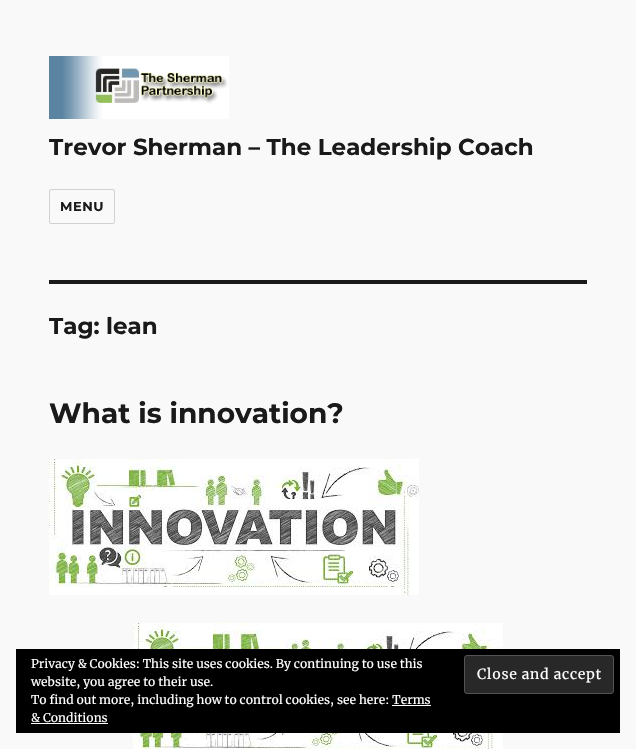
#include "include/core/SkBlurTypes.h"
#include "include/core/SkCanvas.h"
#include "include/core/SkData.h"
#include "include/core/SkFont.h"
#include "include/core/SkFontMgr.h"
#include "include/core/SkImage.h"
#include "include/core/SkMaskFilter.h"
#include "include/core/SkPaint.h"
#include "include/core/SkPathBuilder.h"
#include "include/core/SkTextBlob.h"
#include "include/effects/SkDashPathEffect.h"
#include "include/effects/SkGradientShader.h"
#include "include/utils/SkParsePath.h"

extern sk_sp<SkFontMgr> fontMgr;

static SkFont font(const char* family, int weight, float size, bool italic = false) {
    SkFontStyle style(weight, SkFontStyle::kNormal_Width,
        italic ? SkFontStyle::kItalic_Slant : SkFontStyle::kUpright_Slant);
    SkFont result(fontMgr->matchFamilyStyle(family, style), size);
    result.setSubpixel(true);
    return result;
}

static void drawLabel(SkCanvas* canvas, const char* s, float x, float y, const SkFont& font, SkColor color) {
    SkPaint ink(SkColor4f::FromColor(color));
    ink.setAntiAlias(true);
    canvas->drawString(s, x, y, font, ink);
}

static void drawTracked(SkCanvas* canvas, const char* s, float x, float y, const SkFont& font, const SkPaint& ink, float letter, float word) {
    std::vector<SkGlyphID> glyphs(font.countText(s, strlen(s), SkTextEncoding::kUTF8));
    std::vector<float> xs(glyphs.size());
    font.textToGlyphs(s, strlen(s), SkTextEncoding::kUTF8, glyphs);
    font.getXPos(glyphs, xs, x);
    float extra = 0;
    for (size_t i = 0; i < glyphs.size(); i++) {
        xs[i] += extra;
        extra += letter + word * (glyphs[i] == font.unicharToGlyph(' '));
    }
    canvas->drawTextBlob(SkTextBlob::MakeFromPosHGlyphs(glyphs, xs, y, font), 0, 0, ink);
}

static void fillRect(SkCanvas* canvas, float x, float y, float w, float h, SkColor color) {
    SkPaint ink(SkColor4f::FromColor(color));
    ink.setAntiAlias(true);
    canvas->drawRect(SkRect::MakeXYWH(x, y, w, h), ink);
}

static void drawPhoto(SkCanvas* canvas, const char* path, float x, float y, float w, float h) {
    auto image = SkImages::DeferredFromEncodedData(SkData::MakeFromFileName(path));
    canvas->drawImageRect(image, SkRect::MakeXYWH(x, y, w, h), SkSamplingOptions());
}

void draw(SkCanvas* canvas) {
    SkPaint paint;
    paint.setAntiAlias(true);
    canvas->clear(0xFFF9F9F9);
    drawPhoto(canvas, "assets/img1.png", 49, 56, 180, 63);
    SkFont font1 = font("Montserrat", 100, 23);
    drawLabel(canvas, "Trevor Sherman – The Leadership Coach", 49, 155, font1, 0xFF1A1A1A);
    paint.setStroke(true);
    paint.setStrokeWidth(1);
    paint.setColor(0xFFD1D1D1);
    canvas->drawRoundRect(SkRect::MakeXYWH(49.5f, 189.5f, 65, 34), 1.5f, 1.5f, paint);
    SkFont font2 = font("Montserrat", 100, 13);
    paint.setStroke(false);
    paint.setColor(0xFF1A1A1A);
    drawTracked(canvas, "MENU", 60, 211, font2, paint, 0.5f, 0);
    fillRect(canvas, 49, 280, 538, 4, 0xFF1A1A1A);
    drawLabel(canvas, "Tag: lean", 49, 334, font1, 0xFF1A1A1A);
    SkFont font3 = font("Montserrat", 100, 28);
    drawLabel(canvas, "What is innovation?", 49, 423, font3, 0xFF1A1A1A);
    drawPhoto(canvas, "assets/img2.png", 49, 459, 370, 136);
    drawPhoto(canvas, "assets/img3.png", 133, 623, 370, 126);
    fillRect(canvas, 16, 649, 604, 84, 0xFF000000);
    SkFont font4 = font("Merriweather", 400, 12);
    drawLabel(canvas, "Privacy & Cookies: This site uses cookies. By continuing to use this", 31, 668, font4, 0xFFFFFFFF);
    drawLabel(canvas, "website, you agree to their use.", 31, 686, font4, 0xFFFFFFFF);
    paint.setColor(0xFF282828);
    canvas->drawRoundRect(SkRect::MakeXYWH(464.5f, 655.5f, 149, 38), 2.5f, 2.5f, paint);
    paint.setStroke(true);
    paint.setColor(0xFF535353);
    canvas->drawRoundRect(SkRect::MakeXYWH(464.5f, 655.5f, 149, 38), 2.5f, 2.5f, paint);
    SkFont font5 = font("Merriweather", 400, 14);
    paint.setStroke(false);
    paint.setColor(0xFFFFFFFF);
    drawTracked(canvas, "Close and accept", 477, 679, font5, paint, 0.7f, 0);
    drawLabel(canvas, "To find out more, including how to control cookies, see here: Terms", 31, 704, font4, 0xFFFFFFFF);
    drawLabel(canvas, "& Conditions", 31, 722, font4, 0xFFFFFFFF);
    fillRect(canvas, 392, 705, 39, 1, 0xFFFFFFFF);
    fillRect(canvas, 31, 723, 77, 1, 0xFFFFFFFF);
}
